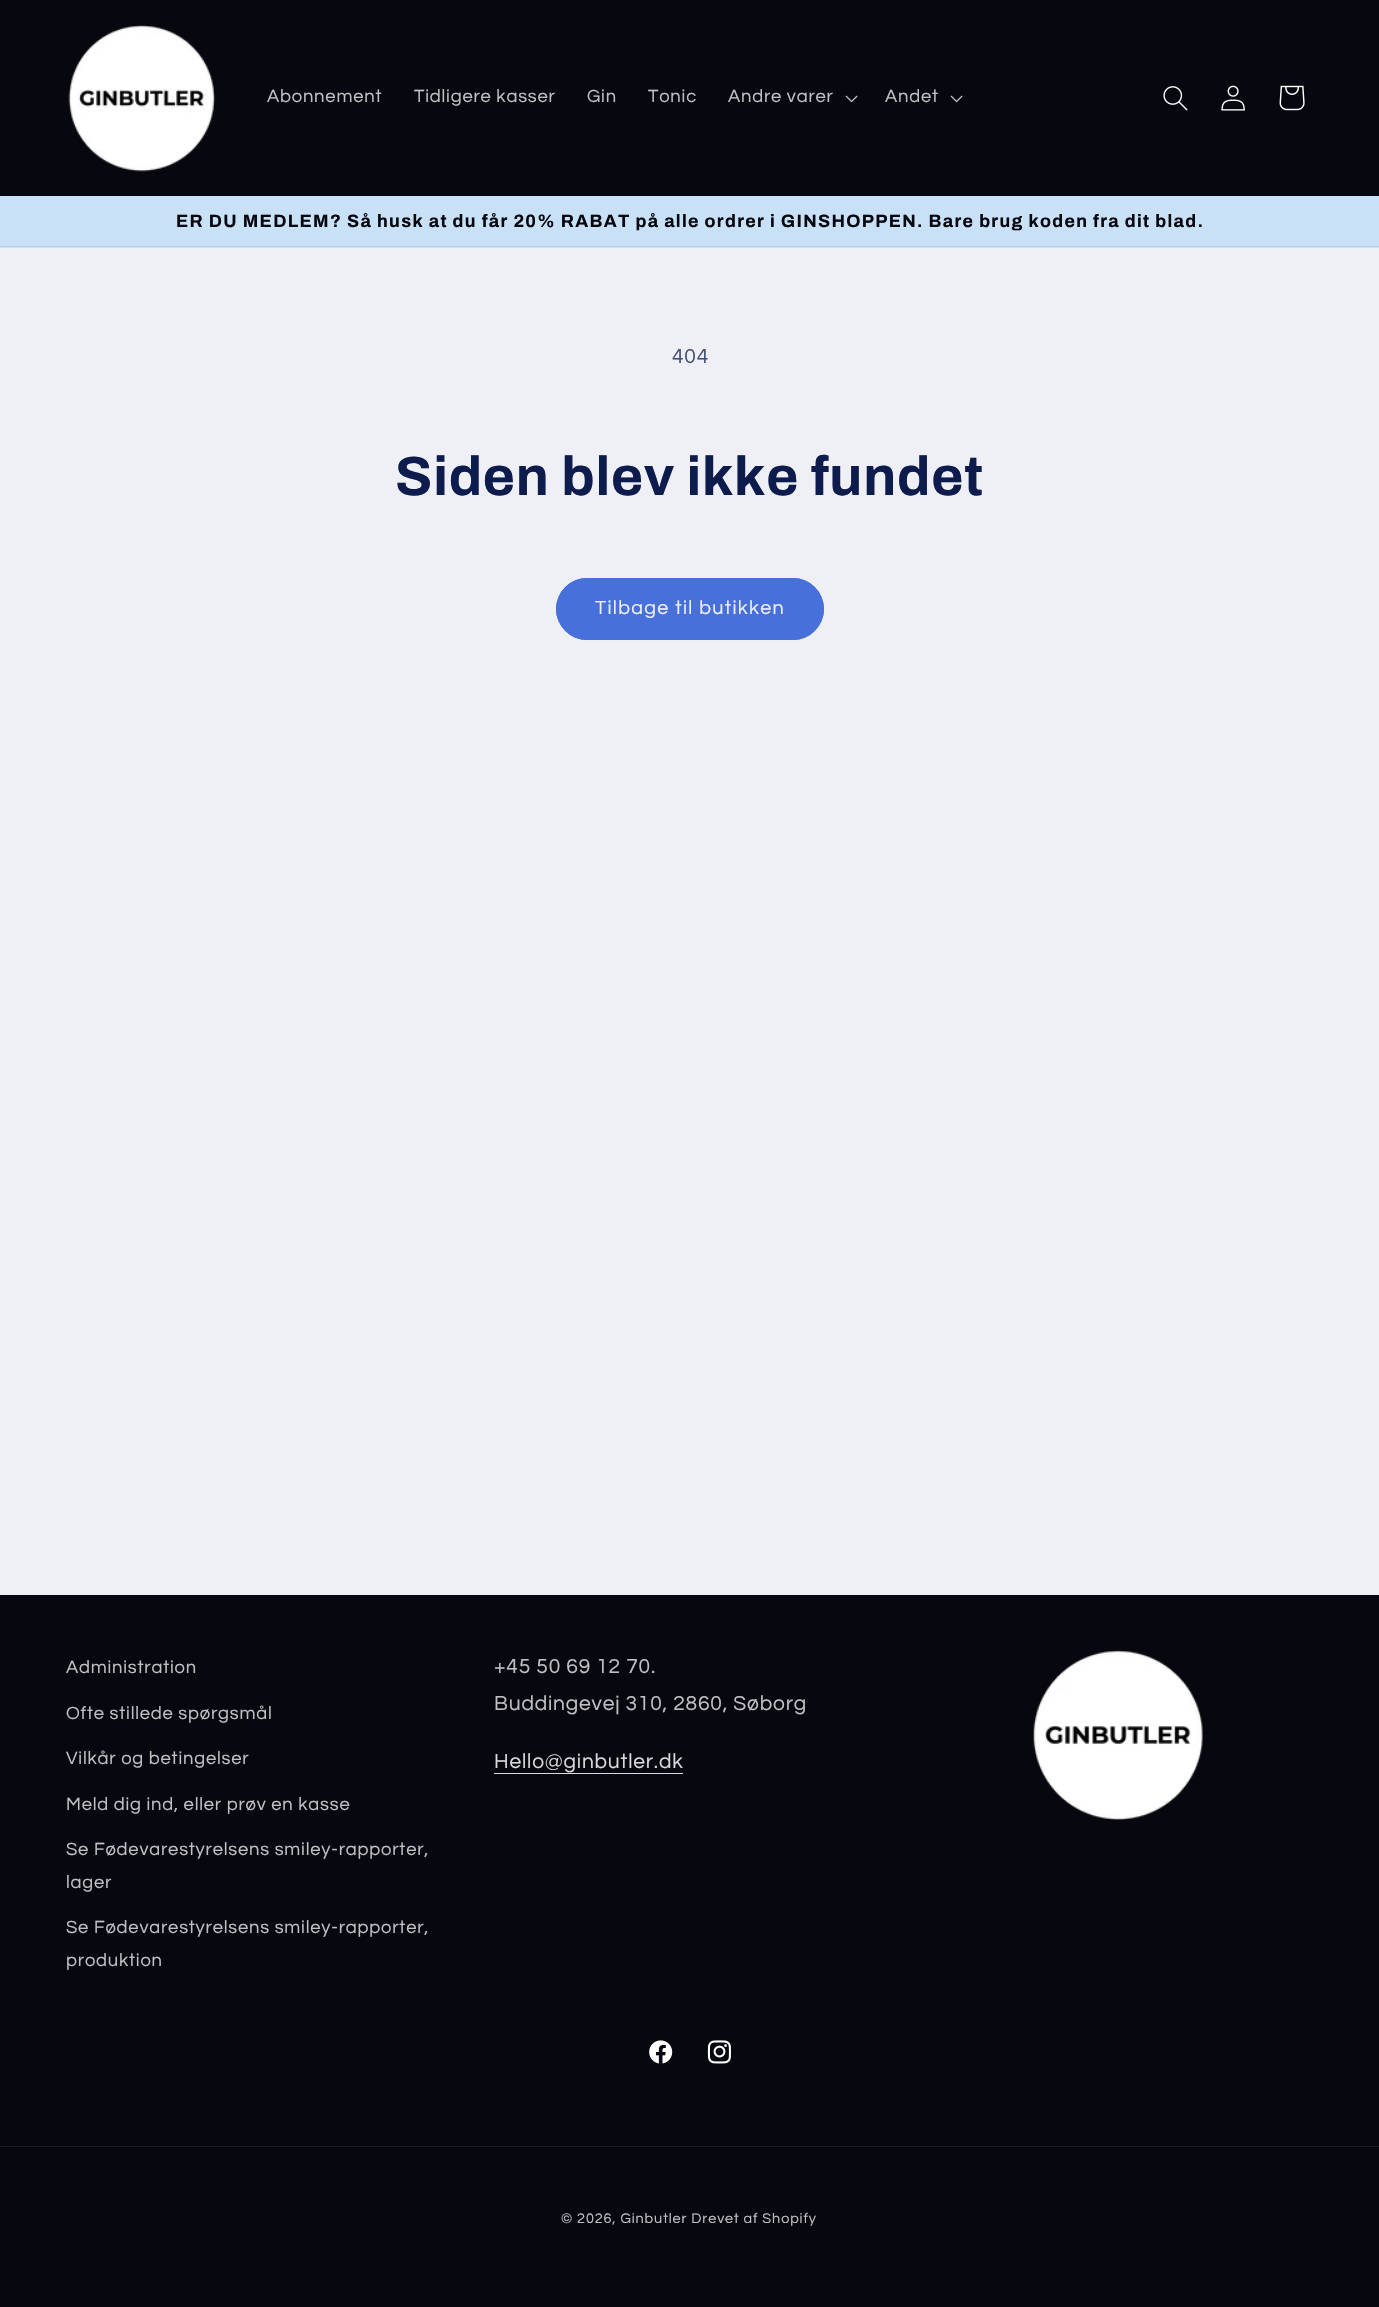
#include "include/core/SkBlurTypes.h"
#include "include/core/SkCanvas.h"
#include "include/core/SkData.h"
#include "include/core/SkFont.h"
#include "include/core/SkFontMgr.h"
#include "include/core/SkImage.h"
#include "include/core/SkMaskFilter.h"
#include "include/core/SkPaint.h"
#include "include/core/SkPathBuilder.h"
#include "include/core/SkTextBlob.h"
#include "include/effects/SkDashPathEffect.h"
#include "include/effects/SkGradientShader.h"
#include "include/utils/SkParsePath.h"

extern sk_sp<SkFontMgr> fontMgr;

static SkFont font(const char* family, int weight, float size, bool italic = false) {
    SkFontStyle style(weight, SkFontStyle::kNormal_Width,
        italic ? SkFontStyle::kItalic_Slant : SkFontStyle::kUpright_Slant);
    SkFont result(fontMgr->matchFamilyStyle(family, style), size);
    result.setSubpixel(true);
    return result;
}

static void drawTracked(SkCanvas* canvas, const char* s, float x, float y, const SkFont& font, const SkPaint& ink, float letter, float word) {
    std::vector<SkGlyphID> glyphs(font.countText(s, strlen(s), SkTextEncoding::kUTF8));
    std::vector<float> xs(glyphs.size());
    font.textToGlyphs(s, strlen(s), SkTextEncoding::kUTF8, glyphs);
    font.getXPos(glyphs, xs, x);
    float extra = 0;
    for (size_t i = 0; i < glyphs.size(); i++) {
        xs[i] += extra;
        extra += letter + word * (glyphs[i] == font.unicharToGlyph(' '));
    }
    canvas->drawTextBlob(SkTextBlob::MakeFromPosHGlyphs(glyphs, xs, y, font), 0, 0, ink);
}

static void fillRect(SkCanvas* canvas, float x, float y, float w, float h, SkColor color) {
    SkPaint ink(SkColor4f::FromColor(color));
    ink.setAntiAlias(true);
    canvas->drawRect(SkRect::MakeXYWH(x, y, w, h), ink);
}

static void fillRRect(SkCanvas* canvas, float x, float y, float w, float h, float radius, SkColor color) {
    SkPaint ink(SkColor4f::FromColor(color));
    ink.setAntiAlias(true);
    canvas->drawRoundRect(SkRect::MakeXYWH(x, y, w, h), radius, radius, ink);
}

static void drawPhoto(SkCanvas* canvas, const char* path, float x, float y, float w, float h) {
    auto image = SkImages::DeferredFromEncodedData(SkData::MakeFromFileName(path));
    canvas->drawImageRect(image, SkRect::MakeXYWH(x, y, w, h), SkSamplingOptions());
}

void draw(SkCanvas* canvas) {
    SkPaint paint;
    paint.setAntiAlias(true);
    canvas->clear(0xFFEFF0F5);
    fillRect(canvas, 0, 0, 1379, 196, 0xFF07070F);
    drawPhoto(canvas, "assets/img1.png", 68, 25, 148, 147);
    SkFont font1 = font("Questrial", 400, 18.4f);
    paint.setColor(0xFFC1C1C3);
    drawTracked(canvas, "Abonnement", 267, 102, font1, paint, 0.8f, 0);
    drawTracked(canvas, "Tidligere kasser", 414, 102, font1, paint, 0.8f, 0);
    drawTracked(canvas, "Gin", 587, 102, font1, paint, 0.8f, 0);
    drawTracked(canvas, "Tonic", 648, 102, font1, paint, 0.8f, 0);
    drawTracked(canvas, "Andre varer", 728, 102, font1, paint, 0.8f, 0);
    drawPhoto(canvas, "assets/img2.png", 845, 95, 13, 8);
    drawTracked(canvas, "Andet", 885, 102, font1, paint, 0.8f, 0);
    drawPhoto(canvas, "assets/img2.png", 950, 95, 13, 8);
    drawPhoto(canvas, "assets/img3.png", 1163, 86, 25, 25);
    drawPhoto(canvas, "assets/img4.png", 1221, 85, 24, 26);
    drawPhoto(canvas, "assets/img5.png", 1279, 85, 26, 26);
    fillRect(canvas, 0, 196, 1379, 52, 0xFFC8E1F7);
    fillRect(canvas, 0, 246, 1379, 1, 0xFFB9D0E4);
    SkFont font2 = font("Archivo", 700, 17.88f);
    paint.setColor(0xFF07070F);
    drawTracked(canvas, "ER DU MEDLEM? Så husk at du får 20% RABAT på alle ordrer i GINSHOPPEN. Bare brug koden fra dit blad.", 176, 227, font2, paint, 1.31f, 0);
    SkFont font3 = font("Questrial", 400, 21);
    paint.setColor(0xFF465077);
    drawTracked(canvas, "404", 672, 363, font3, paint, 0.8f, 0);
    SkFont font4 = font("Archivo", 700, 55);
    paint.setColor(0xFF0E1B4D);
    drawTracked(canvas, "Siden blev ikke fundet", 395, 495, font4, paint, 0.8f, 0);
    fillRRect(canvas, 556, 578, 268, 62, 31, 0xFF4770DB);
    paint.setStroke(true);
    paint.setStrokeWidth(1);
    paint.setColor(0xFF4770DB);
    canvas->drawRoundRect(SkRect::MakeXYWH(556.5f, 578.5f, 267, 61), 30.5f, 30.5f, paint);
    SkFont font5 = font("Questrial", 400, 19.75f);
    paint.setStroke(false);
    paint.setColor(0xFFEFF0F5);
    drawTracked(canvas, "Tilbage til butikken", 595, 614, font5, paint, 1.31f, 0);
    fillRect(canvas, 0, 1595, 1379, 712, 0xFF07070F);
    paint.setColor(0xFFC1C1C3);
    drawTracked(canvas, "Administration", 66, 1673, font1, paint, 0.8f, 0);
    drawTracked(canvas, "Ofte stillede spørgsmål", 66, 1719, font1, paint, 0.8f, 0);
    drawTracked(canvas, "Vilkår og betingelser", 66, 1764, font1, paint, 0.8f, 0);
    drawTracked(canvas, "Meld dig ind, eller prøv en kasse", 66, 1810, font1, paint, 0.8f, 0);
    drawTracked(canvas, "Se Fødevarestyrelsens smiley-rapporter,", 66, 1855, font1, paint, 0.8f, 0);
    drawTracked(canvas, "lager", 66, 1888, font1, paint, 0.8f, 0);
    drawTracked(canvas, "Se Fødevarestyrelsens smiley-rapporter,", 66, 1933, font1, paint, 0.8f, 0);
    drawTracked(canvas, "produktion", 66, 1966, font1, paint, 0.8f, 0);
    drawTracked(canvas, "+45 50 69 12 70.", 494, 1673, font3, paint, 0.8f, 0);
    drawTracked(canvas, "Buddingevej 310, 2860, Søborg", 494, 1710, font3, paint, 0.8f, 0);
    paint.setColor(0xFFDADADB);
    drawTracked(canvas, "Hello@ginbutler.dk", 494, 1768, font3, paint, 0.8f, 0);
    fillRect(canvas, 494, 1773, 189, 1, 0xFFDADADB);
    drawPhoto(canvas, "assets/img6.png", 1032, 1650, 172, 170);
    drawPhoto(canvas, "assets/img7.png", 649, 2040, 24, 24);
    drawPhoto(canvas, "assets/img8.png", 707, 2040, 24, 24);
    fillRect(canvas, 0, 2146, 1379, 1, 0xFF1B1B22);
    SkFont font6 = font("Questrial", 400, 14.4f);
    paint.setColor(0xFFC1C1C3);
    drawTracked(canvas, "© 2026, Ginbutler Drevet af Shopify", 561, 2223, font6, paint, 0.9f, 0);
}
